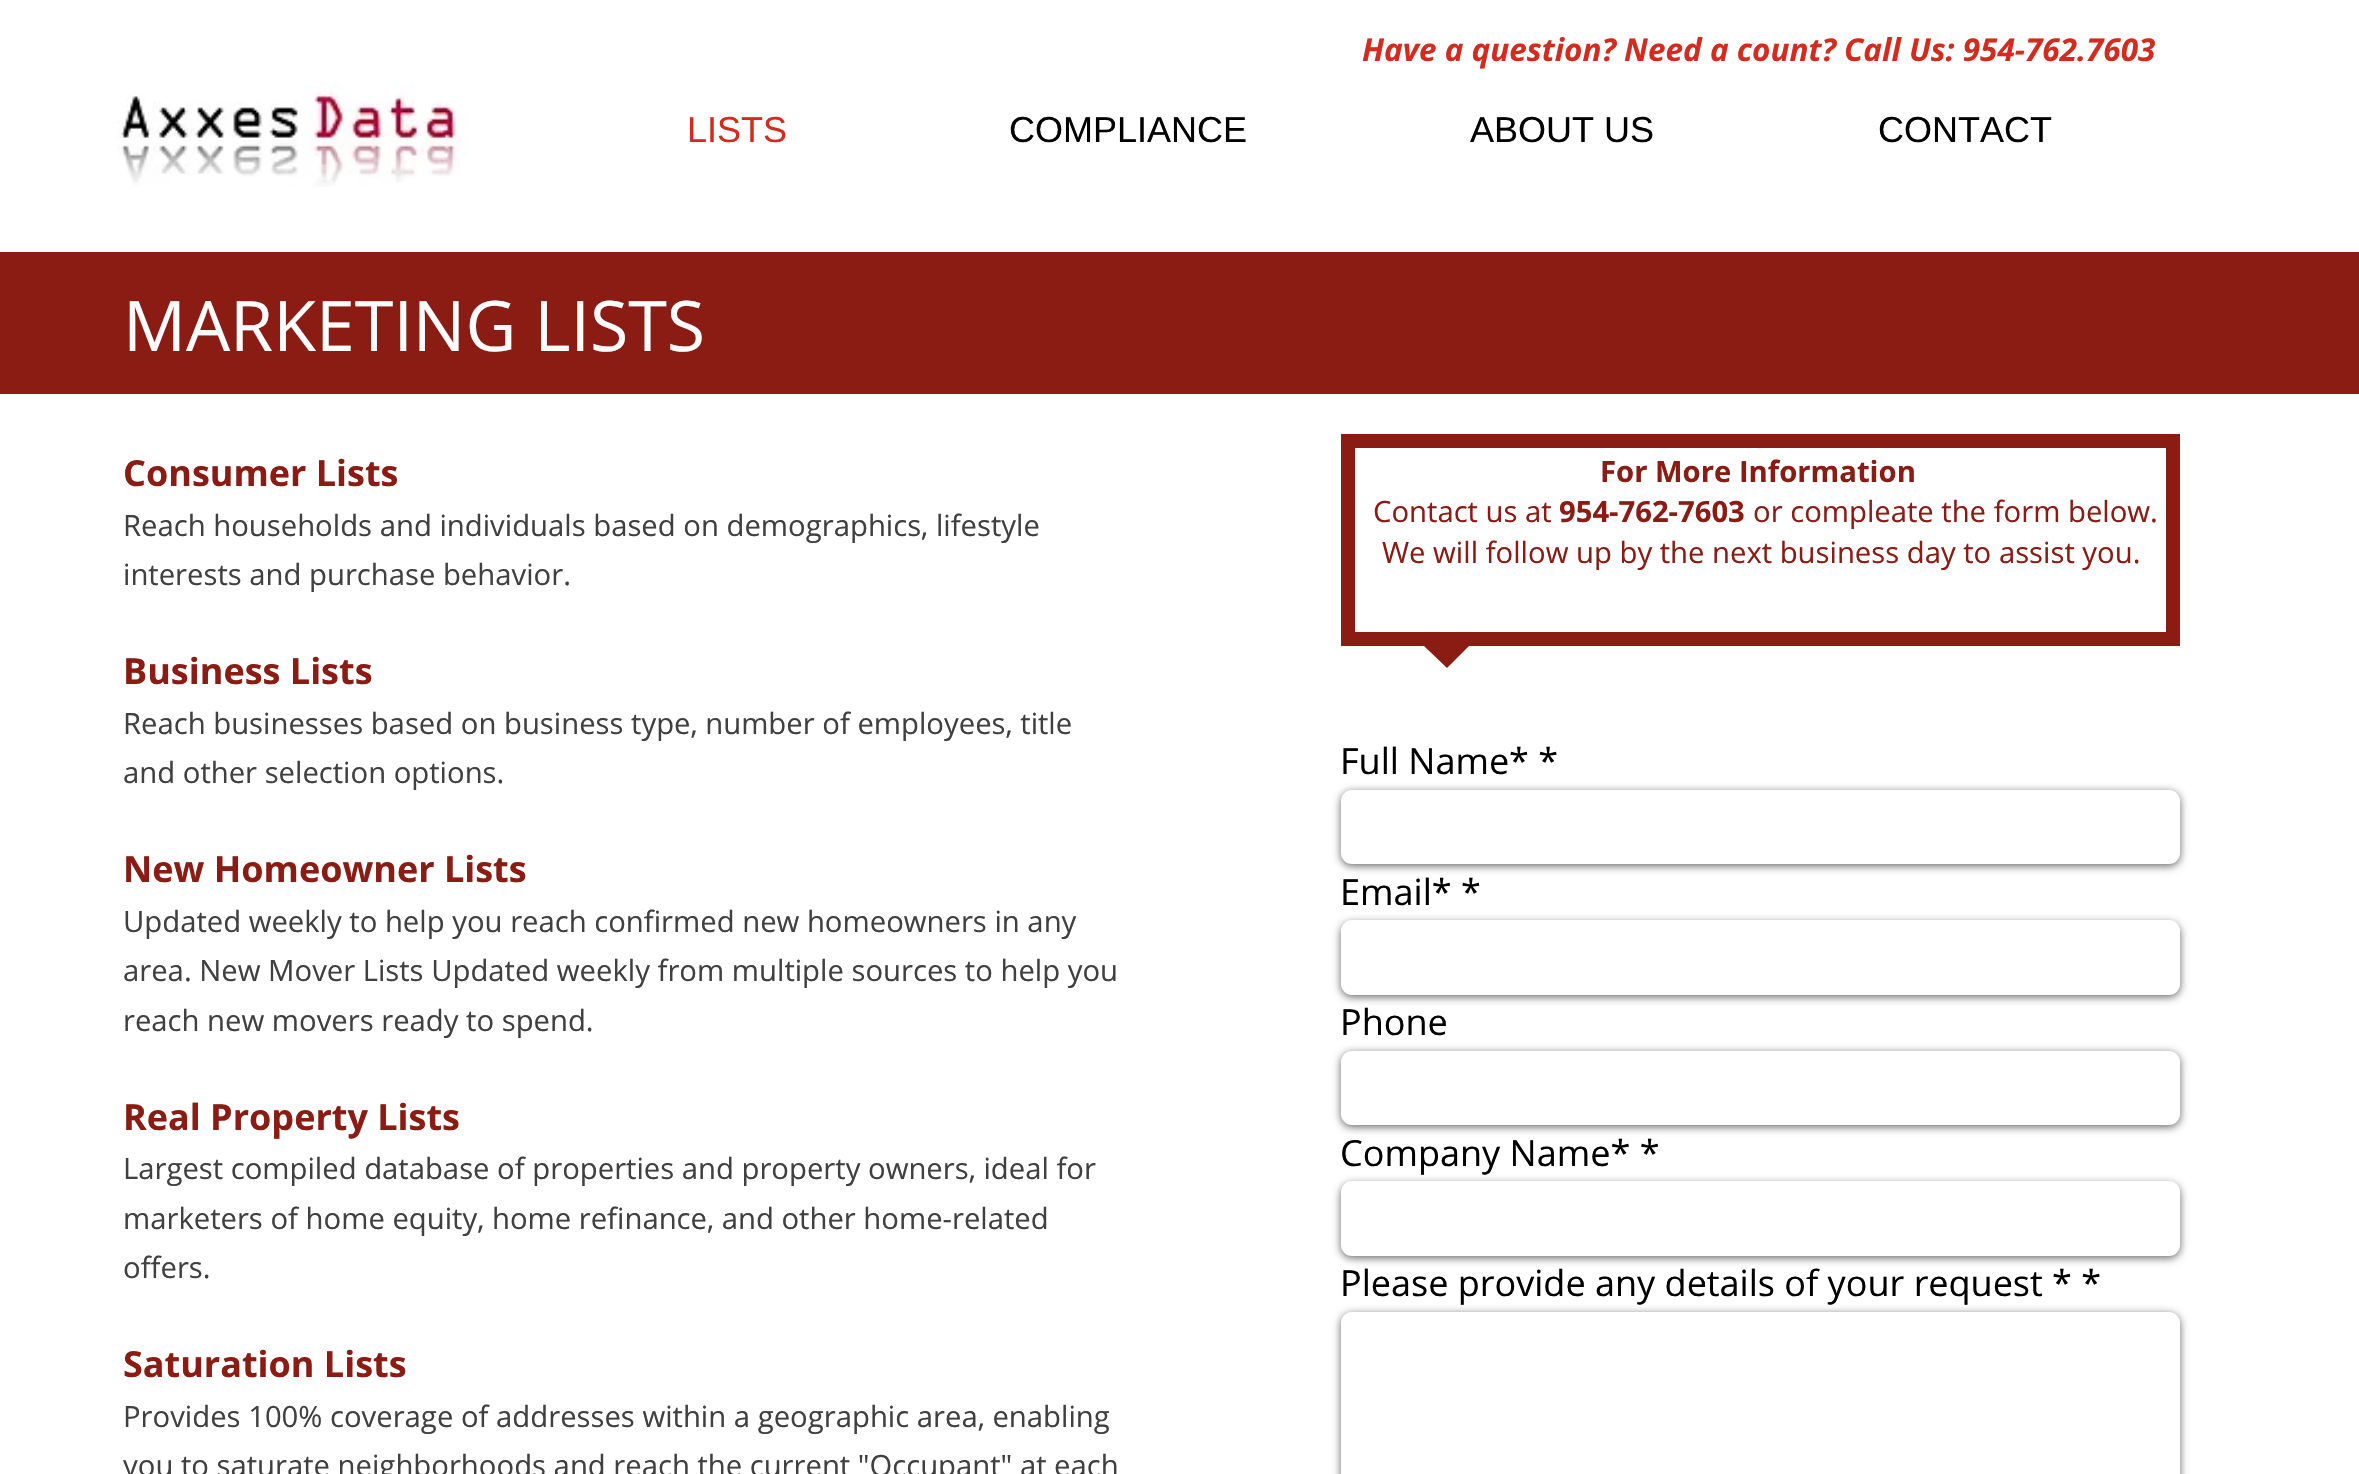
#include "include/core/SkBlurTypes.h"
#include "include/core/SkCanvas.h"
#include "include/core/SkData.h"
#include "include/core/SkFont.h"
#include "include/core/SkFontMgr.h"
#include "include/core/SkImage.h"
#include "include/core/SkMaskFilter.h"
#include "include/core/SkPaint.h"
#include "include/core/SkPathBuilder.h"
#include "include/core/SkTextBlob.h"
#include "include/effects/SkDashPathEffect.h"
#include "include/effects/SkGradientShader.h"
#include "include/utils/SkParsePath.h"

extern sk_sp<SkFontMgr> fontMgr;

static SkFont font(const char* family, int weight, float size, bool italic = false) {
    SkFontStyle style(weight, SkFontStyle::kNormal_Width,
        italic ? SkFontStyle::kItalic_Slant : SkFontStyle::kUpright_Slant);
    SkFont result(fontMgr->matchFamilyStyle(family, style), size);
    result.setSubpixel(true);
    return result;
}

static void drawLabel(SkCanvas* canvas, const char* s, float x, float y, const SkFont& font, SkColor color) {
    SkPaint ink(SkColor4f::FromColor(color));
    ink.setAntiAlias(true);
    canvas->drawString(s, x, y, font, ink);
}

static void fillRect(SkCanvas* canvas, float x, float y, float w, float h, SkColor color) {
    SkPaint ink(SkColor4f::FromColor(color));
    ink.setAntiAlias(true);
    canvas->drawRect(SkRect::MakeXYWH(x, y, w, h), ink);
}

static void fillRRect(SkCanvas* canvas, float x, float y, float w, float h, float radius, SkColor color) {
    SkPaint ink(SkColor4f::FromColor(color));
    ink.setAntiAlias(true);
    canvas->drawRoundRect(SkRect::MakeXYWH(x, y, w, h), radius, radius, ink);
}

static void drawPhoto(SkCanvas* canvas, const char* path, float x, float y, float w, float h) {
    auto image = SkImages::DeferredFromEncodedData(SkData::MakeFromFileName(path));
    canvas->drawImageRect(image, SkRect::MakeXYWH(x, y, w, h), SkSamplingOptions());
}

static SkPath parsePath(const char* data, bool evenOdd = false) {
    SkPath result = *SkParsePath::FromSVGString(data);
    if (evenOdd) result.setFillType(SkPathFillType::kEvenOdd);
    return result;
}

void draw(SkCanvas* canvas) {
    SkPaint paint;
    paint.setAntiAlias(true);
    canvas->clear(0xFFFFFFFF);
    SkFont font1 = font("Open Sans", 700, 31.5f, true);
    drawLabel(canvas, "Have a question? Need a count? Call Us: 954-762.7603", 1362, 61, font1, 0xFFD52B1E);
    drawPhoto(canvas, "assets/img1.png", 117, 83, 352, 104);
    SkFont font2 = font("Liberation Sans", 400, 36);
    drawLabel(canvas, "LISTS", 687, 142, font2, 0xFFD52B1E);
    drawLabel(canvas, "COMPLIANCE", 1009, 142, font2, 0xFF000000);
    drawLabel(canvas, "ABOUT US", 1470, 142, font2, 0xFF000000);
    drawLabel(canvas, "CONTACT", 1878, 142, font2, 0xFF000000);
    fillRect(canvas, 0, 252, 2359, 142, 0xFF8B1C14);
    SkFont font3 = font("Open Sans", 400, 69.75f);
    drawLabel(canvas, "MARKETING LISTS", 123, 351, font3, 0xFFFDFDFE);
    SkFont font4 = font("Open Sans", 700, 36);
    drawLabel(canvas, "Consumer Lists", 123, 486, font4, 0xFF8B1C14);
    SkFont font5 = font("Open Sans", 400, 29.25f);
    drawLabel(canvas, "Reach households and individuals based on demographics, lifestyle", 123, 536, font5, 0xFF404040);
    drawLabel(canvas, "interests and purchase behavior.", 123, 585, font5, 0xFF404040);
    drawLabel(canvas, "Business Lists", 123, 684, font4, 0xFF8B1C14);
    drawLabel(canvas, "Reach businesses based on business type, number of employees, title", 123, 734, font5, 0xFF404040);
    drawLabel(canvas, "and other selection options.", 123, 783, font5, 0xFF404040);
    drawLabel(canvas, "New Homeowner Lists", 123, 882, font4, 0xFF8B1C14);
    drawLabel(canvas, "Updated weekly to help you reach confirmed new homeowners in any", 123, 932, font5, 0xFF404040);
    drawLabel(canvas, "area. New Mover Lists Updated weekly from multiple sources to help you", 123, 981, font5, 0xFF404040);
    drawLabel(canvas, "reach new movers ready to spend.", 123, 1031, font5, 0xFF404040);
    drawLabel(canvas, "Real Property Lists", 123, 1130, font4, 0xFF8B1C14);
    drawLabel(canvas, "Largest compiled database of properties and property owners, ideal for", 123, 1179, font5, 0xFF404040);
    drawLabel(canvas, "marketers of home equity, home refinance, and other home-related", 123, 1229, font5, 0xFF404040);
    drawLabel(canvas, "offers.", 123, 1278, font5, 0xFF404040);
    drawLabel(canvas, "Saturation Lists", 123, 1377, font4, 0xFF8B1C14);
    drawLabel(canvas, "Provides 100% coverage of addresses within a geographic area, enabling", 123, 1427, font5, 0xFF404040);
    drawLabel(canvas, "you to saturate neighborhoods and reach the current \"Occupant\" at each", 123, 1476, font5, 0xFF404040);
    paint.setStroke(true);
    paint.setStrokeWidth(14);
    paint.setColor(0xFF8B1C14);
    canvas->drawRect(SkRect::MakeXYWH(1348, 441, 825, 198), paint);
    paint.setStroke(false);
    canvas->drawPath(parsePath("M1424 646H1469L1447 668Z"), paint);
    SkFont font6 = font("Open Sans", 700, 29.25f);
    drawLabel(canvas, "For More Information", 1600, 482, font6, 0xFF8B1C14);
    drawLabel(canvas, "Contact us at", 1373, 522, font5, 0xFF8B1C14);
    drawLabel(canvas, "954-762-7603", 1559, 522, font6, 0xFF8B1C14);
    drawLabel(canvas, "or compleate the form below.", 1753, 522, font5, 0xFF8B1C14);
    drawLabel(canvas, "We will follow up by the next business day to assist you.", 1382, 563, font5, 0xFF8B1C14);
    SkFont font7 = font("Open Sans", 400, 36);
    drawLabel(canvas, "Full Name* *", 1340, 774, font7, 0xFF000000);
    paint.setColor(0x99000000);
    paint.setMaskFilter(SkMaskFilter::MakeBlur(kNormal_SkBlurStyle, 4.5f));
    canvas->drawRoundRect(SkRect::MakeXYWH(1341, 792, 839, 74), 11, 11, paint);
    paint.setMaskFilter(nullptr);
    fillRRect(canvas, 1341, 790, 839, 74, 11, 0xFFFFFFFF);
    drawLabel(canvas, "Email* *", 1340, 905, font7, 0xFF000000);
    paint.setMaskFilter(SkMaskFilter::MakeBlur(kNormal_SkBlurStyle, 4.5f));
    canvas->drawRoundRect(SkRect::MakeXYWH(1341, 923, 839, 74), 11, 11, paint);
    paint.setMaskFilter(nullptr);
    fillRRect(canvas, 1341, 920, 839, 75, 11, 0xFFFFFFFF);
    drawLabel(canvas, "Phone", 1340, 1035, font7, 0xFF000000);
    paint.setMaskFilter(SkMaskFilter::MakeBlur(kNormal_SkBlurStyle, 4.5f));
    canvas->drawRoundRect(SkRect::MakeXYWH(1341, 1053, 839, 74), 11, 11, paint);
    paint.setMaskFilter(nullptr);
    fillRRect(canvas, 1341, 1051, 839, 74, 11, 0xFFFFFFFF);
    drawLabel(canvas, "Company Name* *", 1340, 1166, font7, 0xFF000000);
    paint.setMaskFilter(SkMaskFilter::MakeBlur(kNormal_SkBlurStyle, 4.5f));
    canvas->drawRoundRect(SkRect::MakeXYWH(1341, 1184, 839, 74), 11, 11, paint);
    paint.setMaskFilter(nullptr);
    fillRRect(canvas, 1341, 1181, 839, 75, 11, 0xFFFFFFFF);
    drawLabel(canvas, "Please provide any details of your request * *", 1340, 1296, font7, 0xFF000000);
    paint.setMaskFilter(SkMaskFilter::MakeBlur(kNormal_SkBlurStyle, 4.5f));
    canvas->drawRoundRect(SkRect::MakeXYWH(1341, 1314, 839, 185), 11, 11, paint);
    paint.setMaskFilter(nullptr);
    fillRRect(canvas, 1341, 1312, 839, 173, 11, 0xFFFFFFFF);
}
